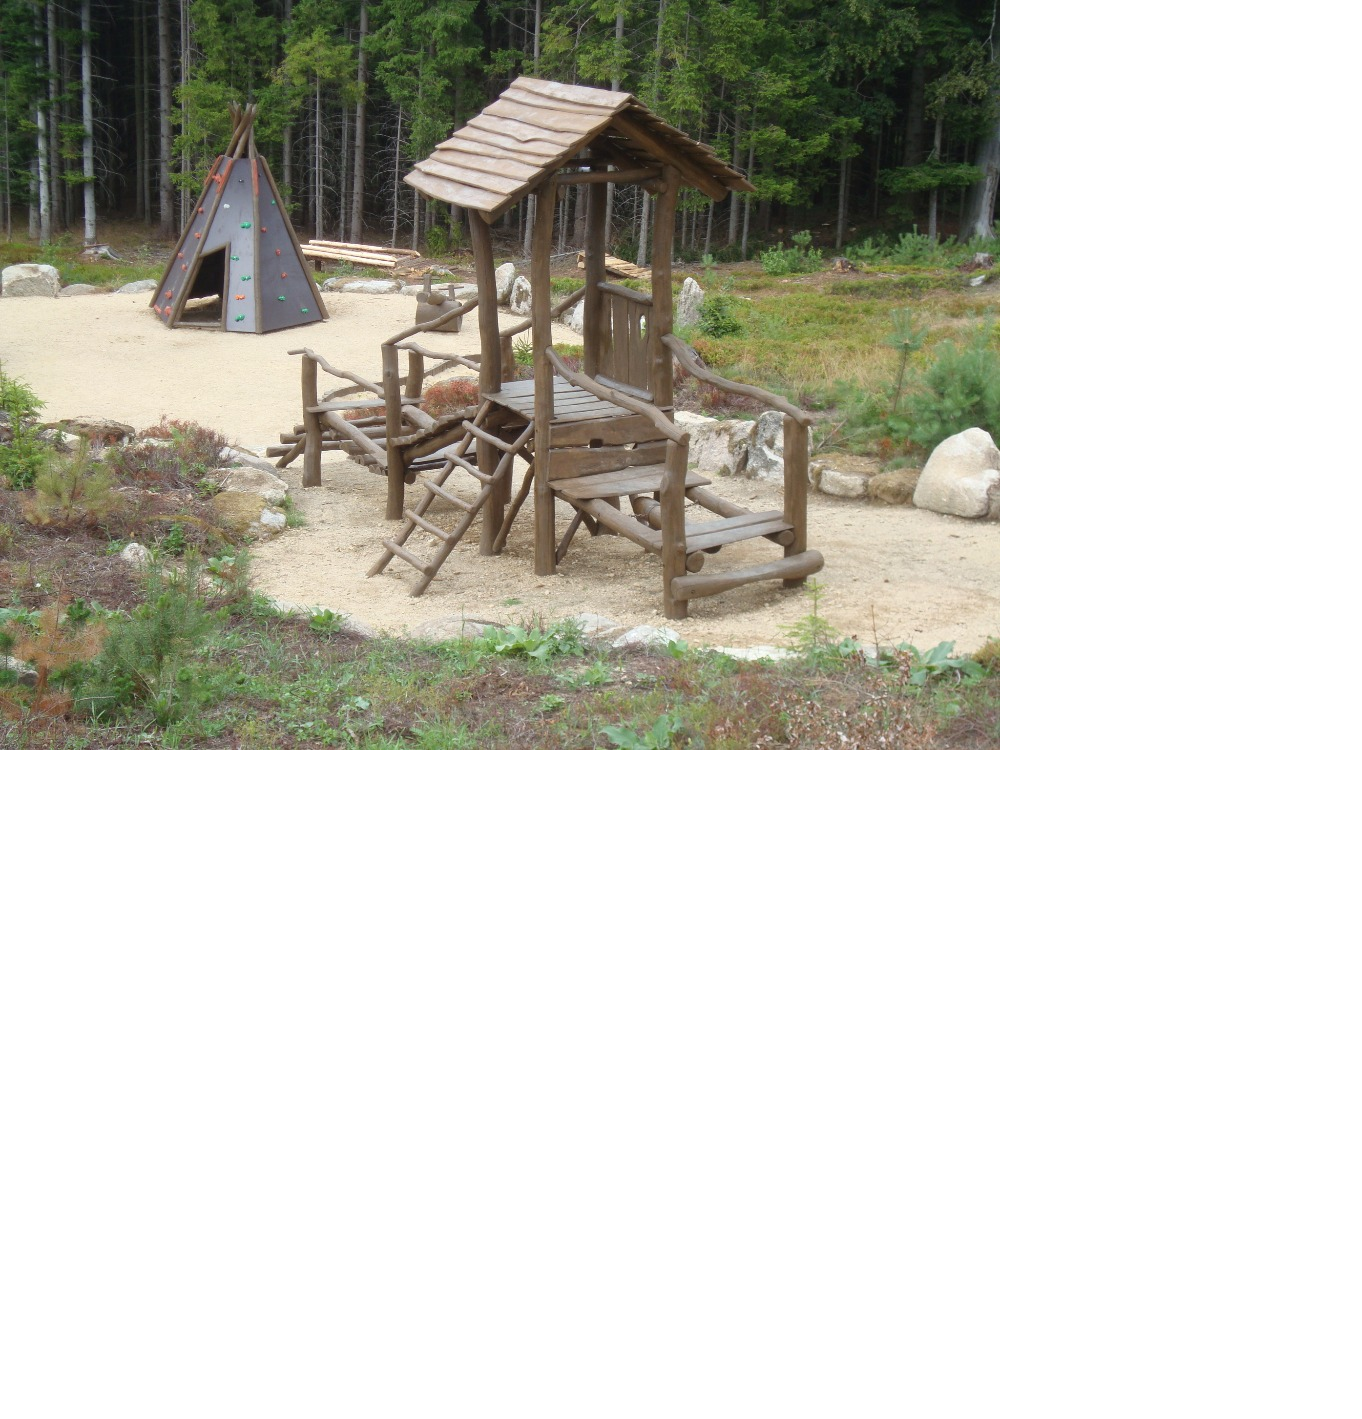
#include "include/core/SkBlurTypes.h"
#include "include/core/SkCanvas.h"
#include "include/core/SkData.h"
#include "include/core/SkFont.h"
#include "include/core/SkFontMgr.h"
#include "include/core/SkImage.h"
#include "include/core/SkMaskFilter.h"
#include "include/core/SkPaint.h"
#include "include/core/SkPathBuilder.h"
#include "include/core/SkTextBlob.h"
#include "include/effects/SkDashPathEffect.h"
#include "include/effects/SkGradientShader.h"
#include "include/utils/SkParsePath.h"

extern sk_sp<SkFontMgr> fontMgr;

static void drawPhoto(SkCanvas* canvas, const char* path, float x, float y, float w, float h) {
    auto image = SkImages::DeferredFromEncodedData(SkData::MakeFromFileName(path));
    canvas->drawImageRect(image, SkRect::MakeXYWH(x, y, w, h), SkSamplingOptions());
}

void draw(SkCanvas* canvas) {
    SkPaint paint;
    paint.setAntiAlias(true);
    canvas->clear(0xFFFFFFFF);
    drawPhoto(canvas, "assets/img1.png", 0, 0, 1000, 750);
}
